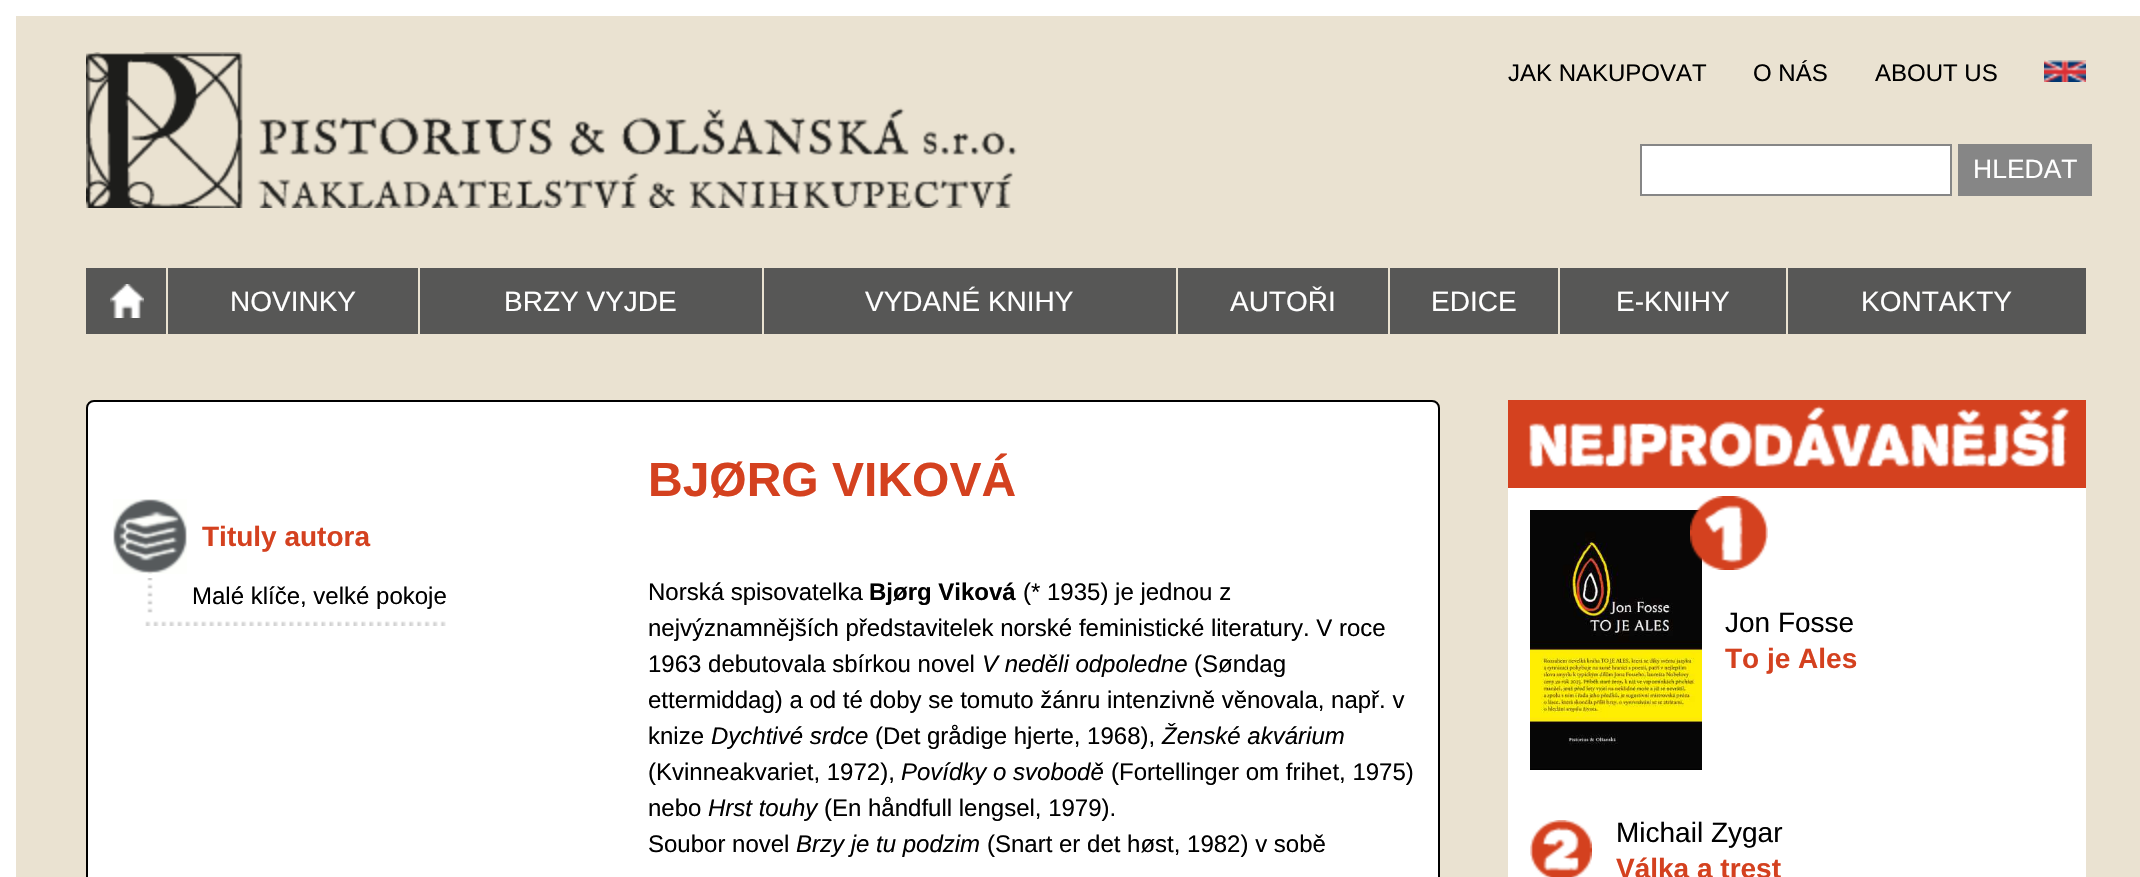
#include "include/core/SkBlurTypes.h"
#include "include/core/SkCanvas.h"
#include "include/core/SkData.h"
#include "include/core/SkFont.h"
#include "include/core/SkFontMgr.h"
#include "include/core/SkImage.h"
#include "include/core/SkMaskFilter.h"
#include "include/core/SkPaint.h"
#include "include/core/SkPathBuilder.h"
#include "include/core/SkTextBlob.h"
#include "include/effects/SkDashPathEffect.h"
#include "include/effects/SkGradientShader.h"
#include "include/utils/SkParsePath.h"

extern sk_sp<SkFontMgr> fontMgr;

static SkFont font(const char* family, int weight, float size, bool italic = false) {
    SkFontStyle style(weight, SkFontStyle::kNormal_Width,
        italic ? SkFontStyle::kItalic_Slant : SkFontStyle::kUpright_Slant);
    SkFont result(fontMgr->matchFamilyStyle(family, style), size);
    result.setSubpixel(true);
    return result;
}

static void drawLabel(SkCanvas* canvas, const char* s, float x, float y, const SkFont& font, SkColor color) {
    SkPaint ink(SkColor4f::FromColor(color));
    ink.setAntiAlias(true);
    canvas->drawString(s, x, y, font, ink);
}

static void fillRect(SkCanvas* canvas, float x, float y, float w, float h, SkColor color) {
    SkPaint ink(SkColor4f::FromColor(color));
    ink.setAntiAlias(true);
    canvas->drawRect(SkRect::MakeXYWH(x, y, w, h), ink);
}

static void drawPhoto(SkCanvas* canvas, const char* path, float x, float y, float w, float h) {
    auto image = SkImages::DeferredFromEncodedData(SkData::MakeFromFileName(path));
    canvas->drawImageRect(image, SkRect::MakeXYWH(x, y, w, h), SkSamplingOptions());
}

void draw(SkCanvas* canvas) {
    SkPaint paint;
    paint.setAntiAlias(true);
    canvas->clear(0xFFFFFFFF);
    fillRect(canvas, 16, 16, 2124, 861, 0xFFEAE2D1);
    drawPhoto(canvas, "assets/img1.png", 86, 52, 931, 156);
    SkFont font1 = font("Liberation Sans", 400, 24);
    drawLabel(canvas, "JAK NAKUPOVAT", 1508, 81, font1, 0xFF000000);
    drawLabel(canvas, "O NÁS", 1753, 81, font1, 0xFF000000);
    drawLabel(canvas, "ABOUT US", 1875, 81, font1, 0xFF000000);
    drawPhoto(canvas, "assets/img2.png", 2044, 60, 42, 22);
    paint.setColor(0xFFFFFFFF);
    canvas->drawRect(SkRect::MakeXYWH(1641, 145, 310, 50), paint);
    paint.setStroke(true);
    paint.setStrokeWidth(2);
    paint.setColor(0xFF868686);
    canvas->drawRect(SkRect::MakeXYWH(1641, 145, 310, 50), paint);
    fillRect(canvas, 1958, 144, 134, 52, 0xFF868686);
    SkFont font2 = font("Liberation Sans", 400, 26.5f);
    drawLabel(canvas, "HLEDAT", 1973, 178, font2, 0xFFFFFFFF);
    fillRect(canvas, 86, 268, 80, 66, 0xFF575756);
    drawPhoto(canvas, "assets/img3.png", 110, 284, 34, 34);
    fillRect(canvas, 168, 268, 250, 66, 0xFF575756);
    SkFont font3 = font("Liberation Sans", 400, 28);
    drawLabel(canvas, "NOVINKY", 230, 311, font3, 0xFFFFFFFF);
    fillRect(canvas, 420, 268, 342, 66, 0xFF575756);
    drawLabel(canvas, "BRZY VYJDE", 504, 311, font3, 0xFFFFFFFF);
    fillRect(canvas, 764, 268, 412, 66, 0xFF575756);
    drawLabel(canvas, "VYDANÉ KNIHY", 865, 311, font3, 0xFFFFFFFF);
    fillRect(canvas, 1178, 268, 210, 66, 0xFF575756);
    drawLabel(canvas, "AUTOŘI", 1230, 311, font3, 0xFFFFFFFF);
    fillRect(canvas, 1390, 268, 168, 66, 0xFF575756);
    drawLabel(canvas, "EDICE", 1431, 311, font3, 0xFFFFFFFF);
    fillRect(canvas, 1560, 268, 226, 66, 0xFF575756);
    drawLabel(canvas, "E-KNIHY", 1616, 311, font3, 0xFFFFFFFF);
    fillRect(canvas, 1788, 268, 298, 66, 0xFF575756);
    drawLabel(canvas, "KONTAKTY", 1861, 311, font3, 0xFFFFFFFF);
    paint.setStroke(false);
    paint.setColor(0xFFFFFFFF);
    canvas->drawRoundRect(SkRect::MakeXYWH(87, 401, 1352, 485), 7, 7, paint);
    paint.setStroke(true);
    paint.setColor(0xFF000000);
    canvas->drawRoundRect(SkRect::MakeXYWH(87, 401, 1352, 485), 7, 7, paint);
    drawPhoto(canvas, "assets/img4.png", 113, 499, 74, 75);
    SkFont font4 = font("Liberation Sans", 700, 28);
    drawLabel(canvas, "Tituly autora", 202, 546, font4, 0xFFD4411F);
    drawPhoto(canvas, "assets/img5.png", 147, 578, 6, 35);
    drawLabel(canvas, "Malé klíče, velké pokoje", 192, 604, font1, 0xFF000000);
    drawPhoto(canvas, "assets/img6.png", 145, 621, 301, 5);
    SkFont font5 = font("Liberation Sans", 700, 48);
    drawLabel(canvas, "BJØRG VIKOVÁ", 648, 496, font5, 0xFFD4411F);
    drawLabel(canvas, "Norská spisovatelka", 648, 600, font1, 0xFF000000);
    SkFont font6 = font("Liberation Sans", 700, 24);
    drawLabel(canvas, "Bjørg Viková", 869, 600, font6, 0xFF000000);
    drawLabel(canvas, "(* 1935) je jednou z", 1023, 600, font1, 0xFF000000);
    drawLabel(canvas, "nejvýznamnějších představitelek norské feministické literatury. V roce", 648, 636, font1, 0xFF000000);
    drawLabel(canvas, "1963 debutovala sbírkou novel", 648, 672, font1, 0xFF000000);
    SkFont font7 = font("Liberation Sans", 400, 24, true);
    drawLabel(canvas, "V neděli odpoledne", 982, 672, font7, 0xFF000000);
    drawLabel(canvas, "(Søndag", 1194, 672, font1, 0xFF000000);
    drawLabel(canvas, "ettermiddag) a od té doby se tomuto žánru intenzivně věnovala, např. v", 648, 708, font1, 0xFF000000);
    drawLabel(canvas, "knize", 648, 744, font1, 0xFF000000);
    drawLabel(canvas, "Dychtivé srdce", 711, 744, font7, 0xFF000000);
    drawLabel(canvas, "(Det grådige hjerte, 1968),", 875, 744, font1, 0xFF000000);
    drawLabel(canvas, "Ženské akvárium", 1162, 744, font7, 0xFF000000);
    drawLabel(canvas, "(Kvinneakvariet, 1972),", 648, 780, font1, 0xFF000000);
    drawLabel(canvas, "Povídky o svobodě", 901, 780, font7, 0xFF000000);
    drawLabel(canvas, "(Fortellinger om frihet, 1975)", 1111, 780, font1, 0xFF000000);
    drawLabel(canvas, "nebo", 648, 816, font1, 0xFF000000);
    drawLabel(canvas, "Hrst touhy", 708, 816, font7, 0xFF000000);
    drawLabel(canvas, "(En håndfull lengsel, 1979).", 824, 816, font1, 0xFF000000);
    drawLabel(canvas, "Soubor novel", 648, 852, font1, 0xFF000000);
    drawLabel(canvas, "Brzy je tu podzim", 796, 852, font7, 0xFF000000);
    drawLabel(canvas, "(Snart er det høst, 1982) v sobě", 987, 852, font1, 0xFF000000);
    drawPhoto(canvas, "assets/img7.png", 1508, 400, 578, 88);
    fillRect(canvas, 1508, 488, 578, 389, 0xFFFFFFFF);
    drawPhoto(canvas, "assets/img8.png", 1530, 510, 172, 260);
    drawPhoto(canvas, "assets/img9.png", 1690, 496, 78, 74);
    drawLabel(canvas, "Jon Fosse", 1725, 632, font3, 0xFF000000);
    drawLabel(canvas, "To je Ales", 1725, 668, font4, 0xFFD4411F);
    drawPhoto(canvas, "assets/img10.png", 1530, 820, 62, 57);
    drawLabel(canvas, "Michail Zygar", 1616, 842, font3, 0xFF000000);
    drawLabel(canvas, "Válka a trest", 1616, 878, font4, 0xFFD4411F);
}
